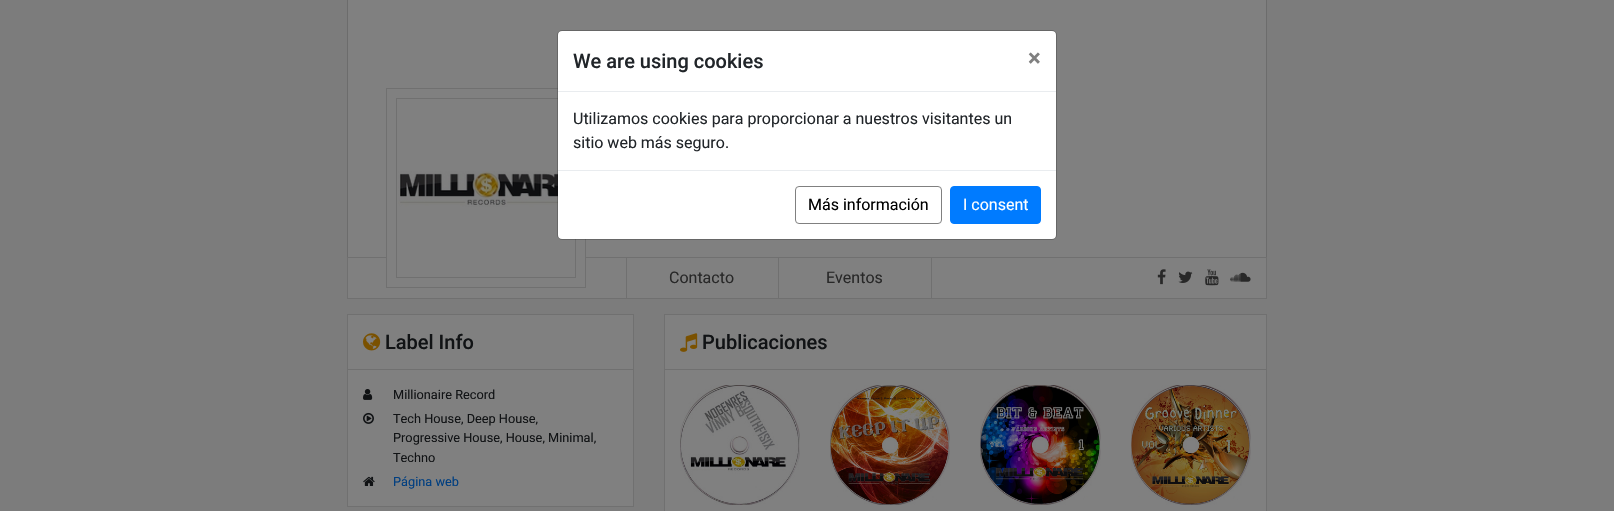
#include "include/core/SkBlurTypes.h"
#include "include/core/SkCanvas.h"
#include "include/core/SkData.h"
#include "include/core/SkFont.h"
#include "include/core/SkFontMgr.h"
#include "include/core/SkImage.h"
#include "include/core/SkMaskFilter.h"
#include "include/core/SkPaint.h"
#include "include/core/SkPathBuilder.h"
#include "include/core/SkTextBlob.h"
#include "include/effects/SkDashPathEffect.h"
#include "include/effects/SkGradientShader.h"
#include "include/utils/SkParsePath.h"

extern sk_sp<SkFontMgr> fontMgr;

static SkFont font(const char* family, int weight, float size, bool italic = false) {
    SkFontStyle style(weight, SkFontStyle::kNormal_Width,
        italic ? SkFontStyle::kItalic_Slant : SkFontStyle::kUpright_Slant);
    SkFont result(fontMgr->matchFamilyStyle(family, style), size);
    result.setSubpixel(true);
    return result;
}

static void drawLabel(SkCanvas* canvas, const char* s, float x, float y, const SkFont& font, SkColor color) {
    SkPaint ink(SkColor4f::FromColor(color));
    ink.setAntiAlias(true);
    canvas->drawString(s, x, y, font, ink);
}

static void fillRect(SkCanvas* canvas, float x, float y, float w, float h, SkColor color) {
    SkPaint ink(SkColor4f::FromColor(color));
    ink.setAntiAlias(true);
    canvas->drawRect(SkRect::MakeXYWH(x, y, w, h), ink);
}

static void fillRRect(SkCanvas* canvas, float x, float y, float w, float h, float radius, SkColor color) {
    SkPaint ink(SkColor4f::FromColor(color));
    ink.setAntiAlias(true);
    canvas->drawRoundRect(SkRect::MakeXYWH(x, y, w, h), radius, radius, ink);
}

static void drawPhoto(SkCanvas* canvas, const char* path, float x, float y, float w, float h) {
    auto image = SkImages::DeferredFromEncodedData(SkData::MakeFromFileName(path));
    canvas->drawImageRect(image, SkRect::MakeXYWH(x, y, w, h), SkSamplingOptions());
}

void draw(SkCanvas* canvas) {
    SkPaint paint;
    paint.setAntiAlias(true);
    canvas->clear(0xFF7C7C7C);
    fillRect(canvas, 348, 0, 918, 257, 0xFF808080);
    paint.setColor(0xFF808080);
    canvas->drawRect(SkRect::MakeXYWH(347.5f, 257.5f, 919, 41), paint);
    paint.setStroke(true);
    paint.setStrokeWidth(1);
    paint.setColor(0xFF707070);
    canvas->drawRect(SkRect::MakeXYWH(347.5f, 257.5f, 919, 41), paint);
    fillRect(canvas, 387, 257, 198, 1, 0xFF808080);
    canvas->drawRect(SkRect::MakeXYWH(386.5f, 88.5f, 199, 199), paint);
    canvas->drawRect(SkRect::MakeXYWH(396.5f, 98.5f, 179, 179), paint);
    fillRRect(canvas, 558, 31, 498, 208, 4, 0xFFFFFFFF);
    drawPhoto(canvas, "assets/img1.png", 398, 171, 160, 36);
    paint.setColor(0x33000000);
    canvas->drawRoundRect(SkRect::MakeXYWH(557.5f, 30.5f, 499, 209), 4.5f, 4.5f, paint);
    fillRect(canvas, 558, 91, 498, 1, 0xFFE9ECEF);
    SkFont font1 = font("Roboto", 500, 20);
    drawLabel(canvas, "We are using cookies", 573, 68, font1, 0xFF212529);
    SkFont font2 = font("Roboto", 700, 24);
    drawLabel(canvas, "×", 1028, 66, font2, 0xFF808080);
    SkFont font3 = font("Roboto", 400, 16);
    drawLabel(canvas, "Utilizamos cookies para proporcionar a nuestros visitantes un", 573, 124, font3, 0xFF212529);
    drawLabel(canvas, "sitio web más seguro.", 573, 148, font3, 0xFF212529);
    fillRect(canvas, 558, 170, 498, 1, 0xFFE9ECEF);
    paint.setColor(0xFF808080);
    canvas->drawRoundRect(SkRect::MakeXYWH(795.5f, 186.5f, 146, 37), 3.5f, 3.5f, paint);
    drawLabel(canvas, "Más información", 808, 210, font3, 0xFF000000);
    paint.setStroke(false);
    paint.setColor(0xFF007BFF);
    canvas->drawRoundRect(SkRect::MakeXYWH(950.5f, 186.5f, 90, 37), 3.5f, 3.5f, paint);
    paint.setStroke(true);
    canvas->drawRoundRect(SkRect::MakeXYWH(950.5f, 186.5f, 90, 37), 3.5f, 3.5f, paint);
    drawLabel(canvas, "I consent", 963, 210, font3, 0xFFFFFFFF);
    fillRect(canvas, 347, 0, 1, 257, 0xFF6C6C6C);
    fillRect(canvas, 1266, 0, 1, 257, 0xFF6C6C6C);
    fillRect(canvas, 778, 258, 1, 40, 0xFF707070);
    fillRect(canvas, 626, 258, 1, 40, 0xFF707070);
    drawLabel(canvas, "Contacto", 669, 283, font3, 0xFF282828);
    fillRect(canvas, 931, 258, 1, 40, 0xFF707070);
    drawLabel(canvas, "Eventos", 826, 283, font3, 0xFF282828);
    drawPhoto(canvas, "assets/img2.png", 1157, 269, 9, 16);
    drawPhoto(canvas, "assets/img3.png", 1178, 271, 15, 12);
    drawPhoto(canvas, "assets/img4.png", 1205, 269, 14, 17);
    drawPhoto(canvas, "assets/img5.png", 1230, 272, 21, 10);
    paint.setStroke(false);
    paint.setColor(0xFF808080);
    canvas->drawRect(SkRect::MakeXYWH(347.5f, 314.5f, 286, 192), paint);
    paint.setStroke(true);
    paint.setColor(0xFF707070);
    canvas->drawRect(SkRect::MakeXYWH(347.5f, 314.5f, 286, 192), paint);
    drawPhoto(canvas, "assets/img6.png", 363, 333, 18, 18);
    drawLabel(canvas, "Label Info", 385, 349, font1, 0xFF111315);
    fillRect(canvas, 348, 369, 285, 1, 0xFF707070);
    drawPhoto(canvas, "assets/img7.png", 363, 389, 10, 11);
    SkFont font4 = font("Roboto", 400, 12.75f);
    drawLabel(canvas, "Millionaire Record", 393, 399, font4, 0xFF111315);
    drawPhoto(canvas, "assets/img8.png", 363, 412, 11, 12);
    drawLabel(canvas, "Tech House, Deep House,", 393, 423, font4, 0xFF111315);
    drawLabel(canvas, "Progressive House, House, Minimal,", 393, 442, font4, 0xFF111315);
    drawLabel(canvas, "Techno", 393, 462, font4, 0xFF111315);
    drawPhoto(canvas, "assets/img9.png", 363, 476, 12, 10);
    drawLabel(canvas, "Página web", 393, 486, font4, 0xFF003E80);
    paint.setStroke(false);
    paint.setColor(0xFF808080);
    canvas->drawRect(SkRect::MakeXYWH(664.5f, 314.5f, 602, 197), paint);
    paint.setStroke(true);
    paint.setColor(0xFF707070);
    canvas->drawRect(SkRect::MakeXYWH(664.5f, 314.5f, 602, 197), paint);
    drawPhoto(canvas, "assets/img10.png", 680, 333, 18, 19);
    drawLabel(canvas, "Publicaciones", 702, 349, font1, 0xFF111315);
    fillRect(canvas, 665, 369, 601, 1, 0xFF707070);
    drawPhoto(canvas, "assets/img11.png", 680, 385, 120, 120);
    drawPhoto(canvas, "assets/img12.png", 830, 385, 120, 120);
    drawPhoto(canvas, "assets/img13.png", 980, 385, 121, 120);
    drawPhoto(canvas, "assets/img14.png", 1131, 385, 120, 120);
}
